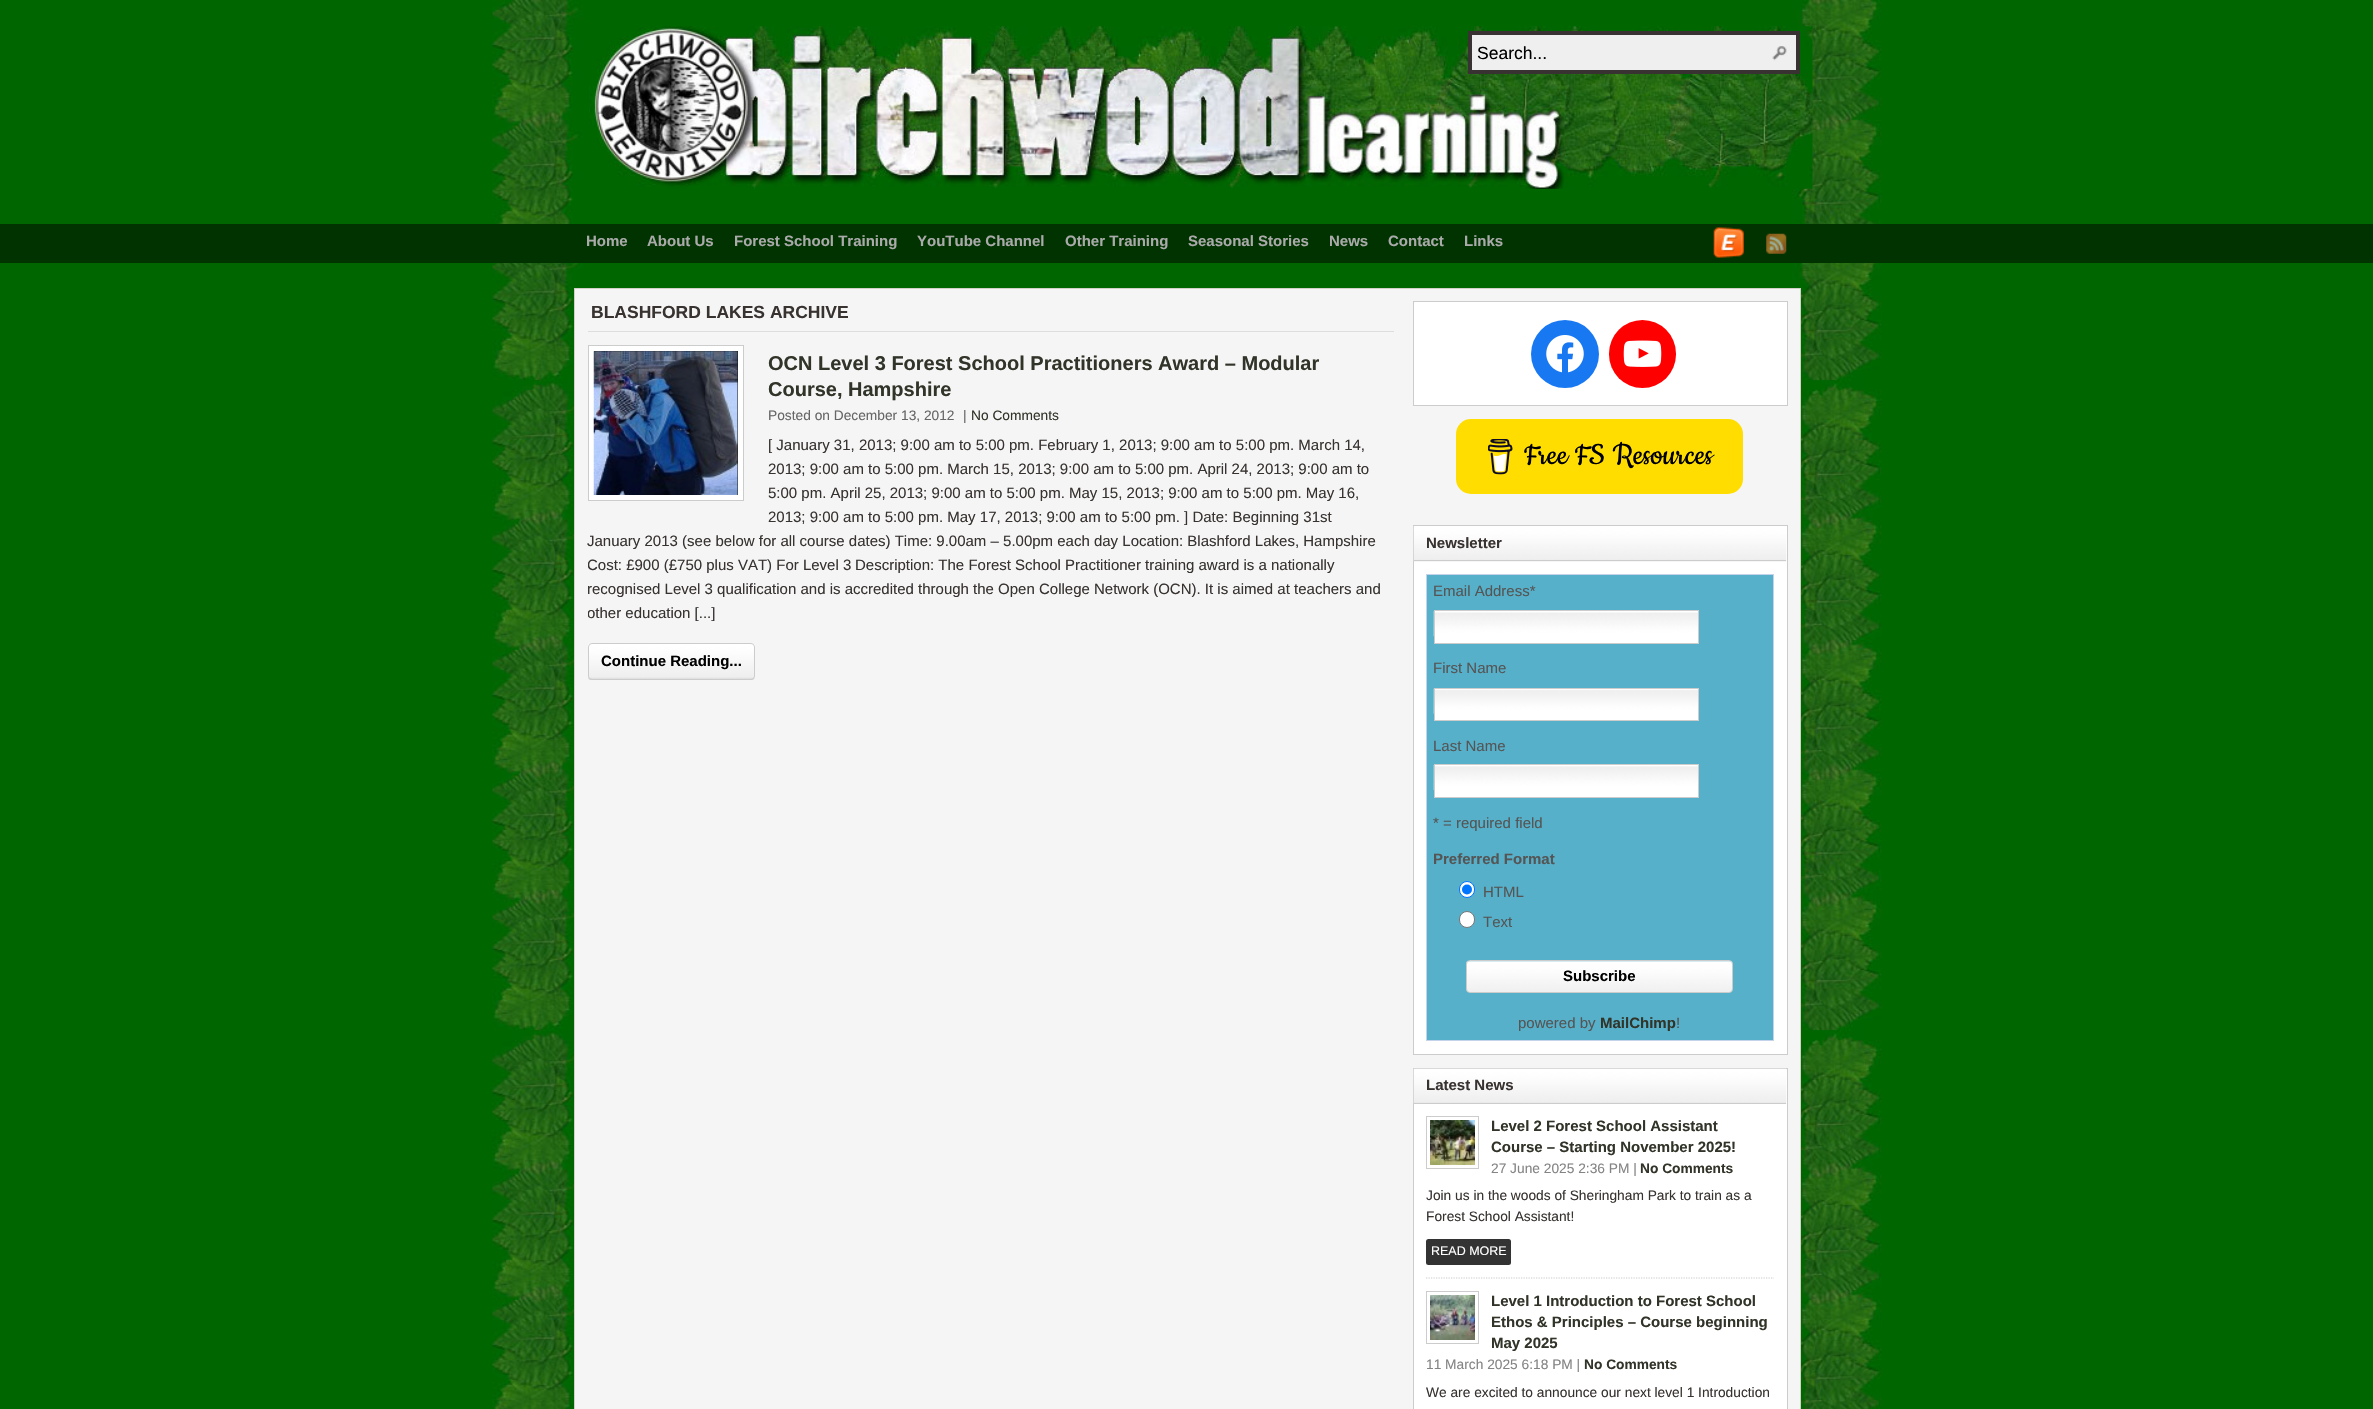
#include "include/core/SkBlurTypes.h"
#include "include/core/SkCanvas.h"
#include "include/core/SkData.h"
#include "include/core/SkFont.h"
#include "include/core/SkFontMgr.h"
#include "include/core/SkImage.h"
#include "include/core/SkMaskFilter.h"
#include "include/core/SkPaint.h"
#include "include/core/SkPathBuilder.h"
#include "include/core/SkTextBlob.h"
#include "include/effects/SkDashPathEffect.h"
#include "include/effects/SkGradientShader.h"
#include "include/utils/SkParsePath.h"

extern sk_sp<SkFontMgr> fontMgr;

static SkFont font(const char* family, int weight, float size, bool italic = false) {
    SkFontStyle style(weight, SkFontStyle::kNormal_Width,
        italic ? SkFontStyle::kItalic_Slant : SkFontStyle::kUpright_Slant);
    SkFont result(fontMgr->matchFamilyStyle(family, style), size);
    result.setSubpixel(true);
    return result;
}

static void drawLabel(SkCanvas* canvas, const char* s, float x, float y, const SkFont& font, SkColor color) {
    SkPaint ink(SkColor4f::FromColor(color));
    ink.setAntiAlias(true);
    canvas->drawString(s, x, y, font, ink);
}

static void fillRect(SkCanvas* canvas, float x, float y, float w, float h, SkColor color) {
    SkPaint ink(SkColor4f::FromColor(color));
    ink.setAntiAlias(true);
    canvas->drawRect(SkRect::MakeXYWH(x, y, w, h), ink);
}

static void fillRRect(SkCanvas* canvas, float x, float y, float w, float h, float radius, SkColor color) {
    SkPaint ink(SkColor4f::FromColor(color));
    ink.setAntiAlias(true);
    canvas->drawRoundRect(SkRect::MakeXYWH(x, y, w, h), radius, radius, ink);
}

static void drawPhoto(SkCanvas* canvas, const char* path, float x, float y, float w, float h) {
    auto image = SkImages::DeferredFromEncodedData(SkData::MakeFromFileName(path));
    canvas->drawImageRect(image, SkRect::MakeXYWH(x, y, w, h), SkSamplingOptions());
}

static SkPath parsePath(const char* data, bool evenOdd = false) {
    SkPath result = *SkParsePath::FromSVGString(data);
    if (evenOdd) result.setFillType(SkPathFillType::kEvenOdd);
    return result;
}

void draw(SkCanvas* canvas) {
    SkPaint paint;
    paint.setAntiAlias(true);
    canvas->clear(0xFF006600);
    drawPhoto(canvas, "assets/img1.png", 492, 0, 1390, 1409);
    drawPhoto(canvas, "assets/img2.png", 589, 26, 1224, 163);
    paint.setColor(0xFFEFEFEF);
    canvas->drawRect(SkRect::MakeXYWH(1470, 33, 328, 39), paint);
    paint.setStroke(true);
    paint.setStrokeWidth(4);
    paint.setColor(0xFF383332);
    canvas->drawRect(SkRect::MakeXYWH(1470, 33, 328, 39), paint);
    SkFont font1 = font("Liberation Sans", 400, 17.5f);
    drawLabel(canvas, "Search...", 1477, 59, font1, 0xFF000000);
    drawPhoto(canvas, "assets/img3.png", 1772, 46, 15, 15);
    fillRect(canvas, 0, 224, 2373, 39, 0xFF003300);
    SkFont font2 = font("Liberation Sans", 700, 15);
    drawLabel(canvas, "Home", 586, 246, font2, 0xFFAAAAAA);
    drawLabel(canvas, "About Us", 647, 246, font2, 0xFFAAAAAA);
    drawLabel(canvas, "Forest School Training", 734, 246, font2, 0xFFAAAAAA);
    drawLabel(canvas, "YouTube Channel", 917, 246, font2, 0xFFAAAAAA);
    drawLabel(canvas, "Other Training", 1065, 246, font2, 0xFFAAAAAA);
    drawLabel(canvas, "Seasonal Stories", 1188, 246, font2, 0xFFAAAAAA);
    drawLabel(canvas, "News", 1329, 246, font2, 0xFFAAAAAA);
    drawLabel(canvas, "Contact", 1388, 246, font2, 0xFFAAAAAA);
    drawLabel(canvas, "Links", 1464, 246, font2, 0xFFAAAAAA);
    drawPhoto(canvas, "assets/img4.png", 1713, 227, 31, 31);
    drawPhoto(canvas, "assets/img5.png", 1766, 233, 21, 21);
    paint.setStroke(false);
    paint.setColor(0xFFF5F5F5);
    canvas->drawRect(SkRect::MakeXYWH(574.5f, 288.5f, 1226, 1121), paint);
    paint.setStroke(true);
    paint.setStrokeWidth(1);
    paint.setColor(0xFFD3D1C7);
    canvas->drawRect(SkRect::MakeXYWH(574.5f, 288.5f, 1226, 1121), paint);
    fillRect(canvas, 588, 331, 806, 1, 0xFFDDDDDD);
    SkFont font3 = font("Liberation Sans", 700, 17.5f);
    drawLabel(canvas, "BLASHFORD LAKES ARCHIVE", 591, 318, font3, 0xFF383331);
    paint.setStroke(false);
    paint.setColor(0xFFFFFFFF);
    canvas->drawRect(SkRect::MakeXYWH(588.5f, 345.5f, 155, 155), paint);
    paint.setStroke(true);
    paint.setColor(0xFFCCCCCC);
    canvas->drawRect(SkRect::MakeXYWH(588.5f, 345.5f, 155, 155), paint);
    fillRect(canvas, 594, 351, 144, 144, 0xFF111111);
    drawPhoto(canvas, "assets/img6.png", 593, 351, 145, 144);
    SkFont font4 = font("Liberation Sans", 700, 20);
    drawLabel(canvas, "OCN Level 3 Forest School Practitioners Award – Modular", 768, 370, font4, 0xFF313428);
    drawLabel(canvas, "Course, Hampshire", 768, 396, font4, 0xFF313428);
    SkFont font5 = font("Liberation Sans", 400, 13.75f);
    drawLabel(canvas, "Posted on December 13, 2012", 768, 420, font5, 0xFF666666);
    drawLabel(canvas, "|", 963, 420, font5, 0xFF666666);
    drawLabel(canvas, "No Comments", 971, 420, font5, 0xFF313428);
    SkFont font6 = font("Liberation Sans", 400, 15);
    drawLabel(canvas, "[ January 31, 2013; 9:00 am to 5:00 pm. February 1, 2013; 9:00 am to 5:00 pm. March 14,", 768, 450, font6, 0xFF383331);
    drawLabel(canvas, "2013; 9:00 am to 5:00 pm. March 15, 2013; 9:00 am to 5:00 pm. April 24, 2013; 9:00 am to", 768, 474, font6, 0xFF383331);
    drawLabel(canvas, "5:00 pm. April 25, 2013; 9:00 am to 5:00 pm. May 15, 2013; 9:00 am to 5:00 pm. May 16,", 768, 498, font6, 0xFF383331);
    drawLabel(canvas, "2013; 9:00 am to 5:00 pm. May 17, 2013; 9:00 am to 5:00 pm. ] Date: Beginning 31st", 768, 522, font6, 0xFF383331);
    drawLabel(canvas, "January 2013 (see below for all course dates) Time: 9.00am – 5.00pm each day Location: Blashford Lakes, Hampshire", 587, 546, font6, 0xFF383331);
    canvas->save();
    canvas->clipRect(SkRect::MakeXYWH(588, 345, 812, 370));
    drawLabel(canvas, "Cost: £900 (£750 plus VAT) For Level 3", 587, 570, font6, 0xFF383331);
    canvas->restore();
    drawLabel(canvas, "Description: The Forest School Practitioner training award is a nationally", 855, 570, font6, 0xFF383331);
    canvas->save();
    canvas->clipRect(SkRect::MakeXYWH(588, 345, 812, 370));
    drawLabel(canvas, "recognised Level 3 qualification and is accredited through the Open College Network (OCN). It is aimed at teachers and", 587, 594, font6, 0xFF383331);
    drawLabel(canvas, "other education [...]", 587, 618, font6, 0xFF383331);
    canvas->restore();
    drawPhoto(canvas, "assets/img7.png", 588, 643, 167, 37);
    canvas->drawRoundRect(SkRect::MakeXYWH(588.5f, 643.5f, 166, 36), 3.5f, 3.5f, paint);
    drawLabel(canvas, "Continue Reading...", 601, 666, font2, 0xFF000000);
    paint.setStroke(false);
    paint.setColor(0xFFFFFFFF);
    canvas->drawRect(SkRect::MakeXYWH(1413.5f, 301.5f, 374, 104), paint);
    paint.setStroke(true);
    paint.setColor(0xFFCCCCCC);
    canvas->drawRect(SkRect::MakeXYWH(1413.5f, 301.5f, 374, 104), paint);
    paint.setStroke(false);
    paint.setColor(0xFF1778F2);
    canvas->drawCircle(1565, 354, 34, paint);
    drawPhoto(canvas, "assets/img8.png", 1546, 335, 38, 38);
    fillRRect(canvas, 1609, 320, 67, 68, 33.5f, 0xFFFF0000);
    drawPhoto(canvas, "assets/img9.png", 1623, 340, 39, 27);
    fillRRect(canvas, 1456, 419, 287, 75, 15, 0xFFFFDD00);
    drawPhoto(canvas, "assets/img10.png", 1488, 439, 25, 36);
    SkFont font7 = font("Cookie", 400, 35);
    drawLabel(canvas, "Free FS Resources", 1524, 464, font7, 0xFF000000);
    paint.setColor(0xFFFFFFFF);
    canvas->drawRect(SkRect::MakeXYWH(1413.5f, 525.5f, 374, 529), paint);
    paint.setStroke(true);
    paint.setColor(0xFFCCCCCC);
    canvas->drawRect(SkRect::MakeXYWH(1413.5f, 525.5f, 374, 529), paint);
    drawPhoto(canvas, "assets/img11.png", 1413, 526, 374, 36);
    fillRect(canvas, 1414, 560, 372, 1, 0xFFCCCCCC);
    drawLabel(canvas, "Newsletter", 1426, 548, font2, 0xFF383331);
    paint.setStroke(false);
    paint.setColor(0xFF56B0CA);
    canvas->drawRect(SkRect::MakeXYWH(1426.5f, 574.5f, 347, 466), paint);
    paint.setStroke(true);
    paint.setColor(0xFFC4D3EA);
    canvas->drawRect(SkRect::MakeXYWH(1426.5f, 574.5f, 347, 466), paint);
    drawLabel(canvas, "Email Address*", 1433, 596, font6, 0xFF555555);
    fillRect(canvas, 1435, 611, 263, 32, 0xFFFFFFFF);
    drawPhoto(canvas, "assets/img12.png", 1433, 611, 265, 26);
    paint.setColor(0xFFCCCCCC);
    canvas->drawRect(SkRect::MakeXYWH(1434.5f, 610.5f, 264, 33), paint);
    drawLabel(canvas, "First Name", 1433, 673, font6, 0xFF555555);
    fillRect(canvas, 1435, 713, 263, 7, 0xFFFFFFFF);
    drawPhoto(canvas, "assets/img13.png", 1433, 688, 265, 26);
    canvas->drawRect(SkRect::MakeXYWH(1434.5f, 688.5f, 264, 32), paint);
    drawLabel(canvas, "Last Name", 1433, 751, font6, 0xFF555555);
    fillRect(canvas, 1435, 790, 263, 7, 0xFFFFFFFF);
    drawPhoto(canvas, "assets/img14.png", 1433, 765, 265, 25);
    canvas->drawRect(SkRect::MakeXYWH(1434.5f, 764.5f, 264, 33), paint);
    drawLabel(canvas, "* = required field", 1433, 828, font6, 0xFF555555);
    drawLabel(canvas, "Preferred Format", 1433, 864, font2, 0xFF555555);
    paint.setStroke(false);
    paint.setColor(0xFFFFFFFF);
    canvas->drawRoundRect(SkRect::MakeXYWH(1459.5f, 881.5f, 15, 16), 7.5f, 7.5f, paint);
    paint.setStroke(true);
    paint.setColor(0xFF0075FF);
    canvas->drawRoundRect(SkRect::MakeXYWH(1459.5f, 881.5f, 15, 16), 7.5f, 7.5f, paint);
    paint.setStroke(false);
    canvas->drawCircle(1467, 889.5f, 5, paint);
    drawLabel(canvas, "HTML", 1483, 897, font6, 0xFF555555);
    paint.setColor(0xFFFFFFFF);
    canvas->drawRoundRect(SkRect::MakeXYWH(1459.5f, 911.5f, 15, 16), 7.5f, 7.5f, paint);
    paint.setStroke(true);
    paint.setColor(0xFF767676);
    canvas->drawRoundRect(SkRect::MakeXYWH(1459.5f, 911.5f, 15, 16), 7.5f, 7.5f, paint);
    drawLabel(canvas, "Text", 1483, 927, font6, 0xFF555555);
    drawPhoto(canvas, "assets/img15.png", 1466, 961, 267, 32);
    paint.setColor(0xFFCCCCCC);
    canvas->drawRoundRect(SkRect::MakeXYWH(1466.5f, 960.5f, 266, 32), 3.5f, 3.5f, paint);
    drawLabel(canvas, "Subscribe", 1563, 981, font2, 0xFF000000);
    drawLabel(canvas, "powered by", 1518, 1028, font6, 0xFF555555);
    drawLabel(canvas, "MailChimp", 1600, 1028, font2, 0xFF313428);
    drawLabel(canvas, "!", 1676, 1028, font6, 0xFF555555);
    paint.setStroke(false);
    paint.setColor(0xFFFFFFFF);
    canvas->drawRect(SkRect::MakeXYWH(1413.5f, 1068.5f, 374, 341), paint);
    paint.setStroke(true);
    paint.setColor(0xFFCCCCCC);
    canvas->drawRect(SkRect::MakeXYWH(1413.5f, 1068.5f, 374, 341), paint);
    drawPhoto(canvas, "assets/img16.png", 1413, 1068, 374, 36);
    fillRect(canvas, 1414, 1103, 372, 1, 0xFFCCCCCC);
    drawLabel(canvas, "Latest News", 1426, 1090, font2, 0xFF383331);
    paint.setStrokeWidth(1.2f);
    paint.setPathEffect(SkDashPathEffect::Make({{1.25f, 1.25f}}, 0));
    canvas->drawPath(parsePath("M1426 1278H1774"), paint);
    paint.setPathEffect(nullptr);
    paint.setStrokeWidth(1);
    canvas->drawRect(SkRect::MakeXYWH(1426.5f, 1116.5f, 52, 52), paint);
    drawPhoto(canvas, "assets/img17.png", 1430, 1120, 45, 45);
    drawLabel(canvas, "Level 2 Forest School Assistant", 1491, 1131, font2, 0xFF313428);
    drawLabel(canvas, "Course – Starting November 2025!", 1491, 1152, font2, 0xFF313428);
    drawLabel(canvas, "27 June 2025 2:36 PM |", 1491, 1173, font5, 0xFF848485);
    SkFont font8 = font("Liberation Sans", 700, 13.75f);
    drawLabel(canvas, "No Comments", 1640, 1173, font8, 0xFF313428);
    drawLabel(canvas, "Join us in the woods of Sheringham Park to train as a", 1426, 1200, font5, 0xFF383331);
    drawLabel(canvas, "Forest School Assistant!", 1426, 1221, font5, 0xFF383331);
    fillRRect(canvas, 1426, 1239, 85, 26, 2.5f, 0xFF333333);
    SkFont font9 = font("Liberation Sans", 400, 12.5f);
    drawLabel(canvas, "READ MORE", 1431, 1255, font9, 0xFFFFFFFF);
    canvas->drawRect(SkRect::MakeXYWH(1426.5f, 1291.5f, 52, 52), paint);
    drawPhoto(canvas, "assets/img18.png", 1430, 1295, 45, 45);
    drawLabel(canvas, "Level 1 Introduction to Forest School", 1491, 1306, font2, 0xFF313428);
    drawLabel(canvas, "Ethos & Principles – Course beginning", 1491, 1327, font2, 0xFF313428);
    drawLabel(canvas, "May 2025", 1491, 1348, font2, 0xFF313428);
    drawLabel(canvas, "11 March 2025 6:18 PM |", 1426, 1369, font5, 0xFF848485);
    drawLabel(canvas, "No Comments", 1584, 1369, font8, 0xFF313428);
    drawLabel(canvas, "We are excited to announce our next level 1 Introduction", 1426, 1397, font5, 0xFF383331);
}
